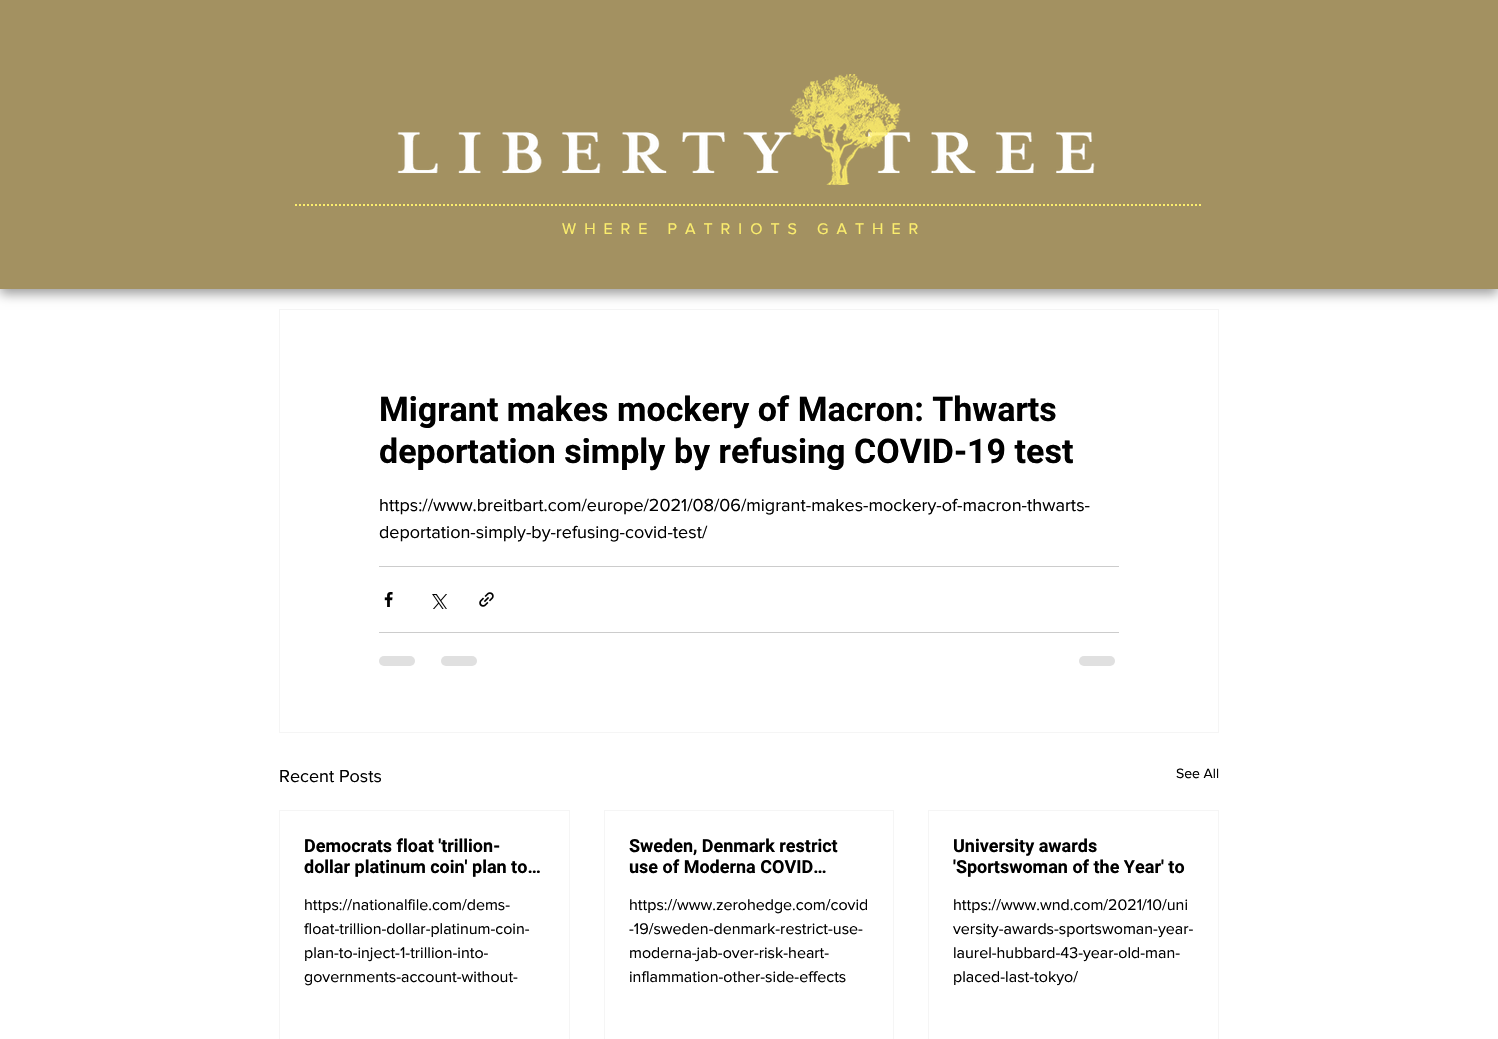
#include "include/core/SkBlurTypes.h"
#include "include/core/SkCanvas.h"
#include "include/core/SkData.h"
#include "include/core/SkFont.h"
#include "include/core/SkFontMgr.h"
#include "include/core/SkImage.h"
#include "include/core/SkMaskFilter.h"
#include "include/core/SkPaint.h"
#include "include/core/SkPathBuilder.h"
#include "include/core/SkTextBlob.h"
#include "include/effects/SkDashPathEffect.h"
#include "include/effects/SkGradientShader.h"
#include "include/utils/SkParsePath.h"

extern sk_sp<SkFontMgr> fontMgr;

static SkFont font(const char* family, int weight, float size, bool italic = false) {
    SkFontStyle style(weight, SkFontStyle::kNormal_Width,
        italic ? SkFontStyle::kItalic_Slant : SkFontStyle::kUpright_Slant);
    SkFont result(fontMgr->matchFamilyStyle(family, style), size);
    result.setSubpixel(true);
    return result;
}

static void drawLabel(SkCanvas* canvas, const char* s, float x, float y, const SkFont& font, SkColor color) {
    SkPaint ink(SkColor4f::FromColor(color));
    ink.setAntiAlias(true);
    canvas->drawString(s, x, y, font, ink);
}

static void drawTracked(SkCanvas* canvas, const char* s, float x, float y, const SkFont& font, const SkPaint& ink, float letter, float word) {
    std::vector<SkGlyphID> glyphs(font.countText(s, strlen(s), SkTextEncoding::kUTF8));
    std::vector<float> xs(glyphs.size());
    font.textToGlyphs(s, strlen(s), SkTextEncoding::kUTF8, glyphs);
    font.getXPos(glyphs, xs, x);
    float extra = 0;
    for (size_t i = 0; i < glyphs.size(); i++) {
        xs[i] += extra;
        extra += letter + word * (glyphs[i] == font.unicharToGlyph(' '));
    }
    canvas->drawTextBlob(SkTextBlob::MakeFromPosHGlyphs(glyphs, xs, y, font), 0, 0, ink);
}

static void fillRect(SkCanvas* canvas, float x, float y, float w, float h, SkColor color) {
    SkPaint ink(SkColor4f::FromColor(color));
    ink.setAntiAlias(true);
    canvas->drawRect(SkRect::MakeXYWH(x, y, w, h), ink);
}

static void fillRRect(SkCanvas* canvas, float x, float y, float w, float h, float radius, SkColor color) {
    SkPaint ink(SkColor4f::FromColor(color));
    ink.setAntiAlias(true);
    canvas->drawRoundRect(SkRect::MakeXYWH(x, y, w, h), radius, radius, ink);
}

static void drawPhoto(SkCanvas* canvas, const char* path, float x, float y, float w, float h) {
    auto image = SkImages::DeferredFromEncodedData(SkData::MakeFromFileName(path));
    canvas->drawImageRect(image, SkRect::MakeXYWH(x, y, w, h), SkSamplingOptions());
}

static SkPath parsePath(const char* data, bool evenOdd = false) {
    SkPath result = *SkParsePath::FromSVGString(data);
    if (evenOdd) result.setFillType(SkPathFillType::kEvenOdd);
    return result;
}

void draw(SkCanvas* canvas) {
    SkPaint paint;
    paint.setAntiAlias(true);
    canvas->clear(0xFFFFFFFF);
    paint.setStroke(true);
    paint.setStrokeWidth(1);
    paint.setColor(0xFFF5F5F5);
    canvas->drawRect(SkRect::MakeXYWH(279.5f, 309.5f, 939, 423), paint);
    paint.setStroke(false);
    paint.setColor(0x61000000);
    paint.setMaskFilter(SkMaskFilter::MakeBlur(kNormal_SkBlurStyle, 5.5f));
    canvas->drawRect(SkRect::MakeXYWH(0, 5, 1498, 289), paint);
    paint.setMaskFilter(nullptr);
    fillRect(canvas, 0, 0, 1498, 289, 0xFFA39161);
    drawPhoto(canvas, "assets/img1.png", 397, 74, 698, 111);
    paint.setStroke(true);
    paint.setStrokeWidth(2);
    paint.setColor(0xFFFBED6D);
    paint.setPathEffect(SkDashPathEffect::Make({{2, 2}}, 0));
    canvas->drawPath(parsePath("M295 205H1203"), paint);
    paint.setPathEffect(nullptr);
    SkFont font1 = font("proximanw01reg", 400, 16);
    paint.setStroke(false);
    drawTracked(canvas, "WHERE PATRIOTS GATHER", 562, 234, font1, paint, 8, 0);
    SkFont font2 = font("Roboto", 700, 34);
    drawLabel(canvas, "Migrant makes mockery of Macron: Thwarts", 379, 421, font2, 0xFF000000);
    drawLabel(canvas, "deportation simply by refusing COVID-19 test", 379, 463, font2, 0xFF000000);
    SkFont font3 = font("proximanw01reg", 400, 18);
    drawLabel(canvas, "https://www.breitbart.com/europe/2021/08/06/migrant-makes-mockery-of-macron-thwarts-", 379, 511, font3, 0xFF000000);
    drawLabel(canvas, "deportation-simply-by-refusing-covid-test/", 379, 538, font3, 0xFF000000);
    fillRect(canvas, 379, 566, 740, 1, 0xFFCCCCCC);
    drawPhoto(canvas, "assets/img2.png", 384, 592, 9, 15);
    drawPhoto(canvas, "assets/img3.png", 432, 594, 15, 15);
    drawPhoto(canvas, "assets/img4.png", 479, 592, 15, 15);
    fillRect(canvas, 379, 632, 740, 1, 0xFFCCCCCC);
    fillRRect(canvas, 379, 656, 36, 10, 5, 0xFFE0E0E0);
    fillRRect(canvas, 441, 656, 36, 10, 5, 0xFFE0E0E0);
    fillRRect(canvas, 1079, 656, 36, 10, 5, 0xFFE0E0E0);
    drawLabel(canvas, "Recent Posts", 279, 782, font3, 0xFF000000);
    SkFont font4 = font("proximanw01reg", 400, 14);
    drawLabel(canvas, "See All", 1176, 778, font4, 0xFF000000);
    paint.setStroke(true);
    paint.setStrokeWidth(1);
    paint.setColor(0xFFF5F5F5);
    canvas->drawRect(SkRect::MakeXYWH(279.5f, 810.5f, 290, 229), paint);
    SkFont font5 = font("Roboto", 700, 18);
    drawLabel(canvas, "Democrats float 'trillion-", 304, 852, font5, 0xFF000000);
    drawLabel(canvas, "dollar platinum coin' plan to…", 304, 873, font5, 0xFF000000);
    drawLabel(canvas, "https://nationalfile.com/dems-", 304, 910, font1, 0xFF000000);
    drawLabel(canvas, "float-trillion-dollar-platinum-coin-", 304, 934, font1, 0xFF000000);
    drawLabel(canvas, "plan-to-inject-1-trillion-into-", 304, 958, font1, 0xFF000000);
    drawLabel(canvas, "governments-account-without-", 304, 982, font1, 0xFF000000);
    canvas->drawRect(SkRect::MakeXYWH(604.5f, 810.5f, 289, 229), paint);
    drawLabel(canvas, "Sweden, Denmark restrict", 629, 852, font5, 0xFF000000);
    drawLabel(canvas, "use of Moderna COVID…", 629, 873, font5, 0xFF000000);
    drawLabel(canvas, "https://www.zerohedge.com/covid", 629, 910, font1, 0xFF000000);
    drawLabel(canvas, "-19/sweden-denmark-restrict-use-", 629, 934, font1, 0xFF000000);
    drawLabel(canvas, "moderna-jab-over-risk-heart-", 629, 958, font1, 0xFF000000);
    drawLabel(canvas, "inflammation-other-side-effects", 629, 982, font1, 0xFF000000);
    canvas->drawRect(SkRect::MakeXYWH(928.5f, 810.5f, 290, 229), paint);
    drawLabel(canvas, "University awards", 953, 852, font5, 0xFF000000);
    drawLabel(canvas, "'Sportswoman of the Year' to", 953, 873, font5, 0xFF000000);
    drawLabel(canvas, "https://www.wnd.com/2021/10/uni", 953, 910, font1, 0xFF000000);
    drawLabel(canvas, "versity-awards-sportswoman-year-", 953, 934, font1, 0xFF000000);
    drawLabel(canvas, "laurel-hubbard-43-year-old-man-", 953, 958, font1, 0xFF000000);
    drawLabel(canvas, "placed-last-tokyo/", 953, 982, font1, 0xFF000000);
}
